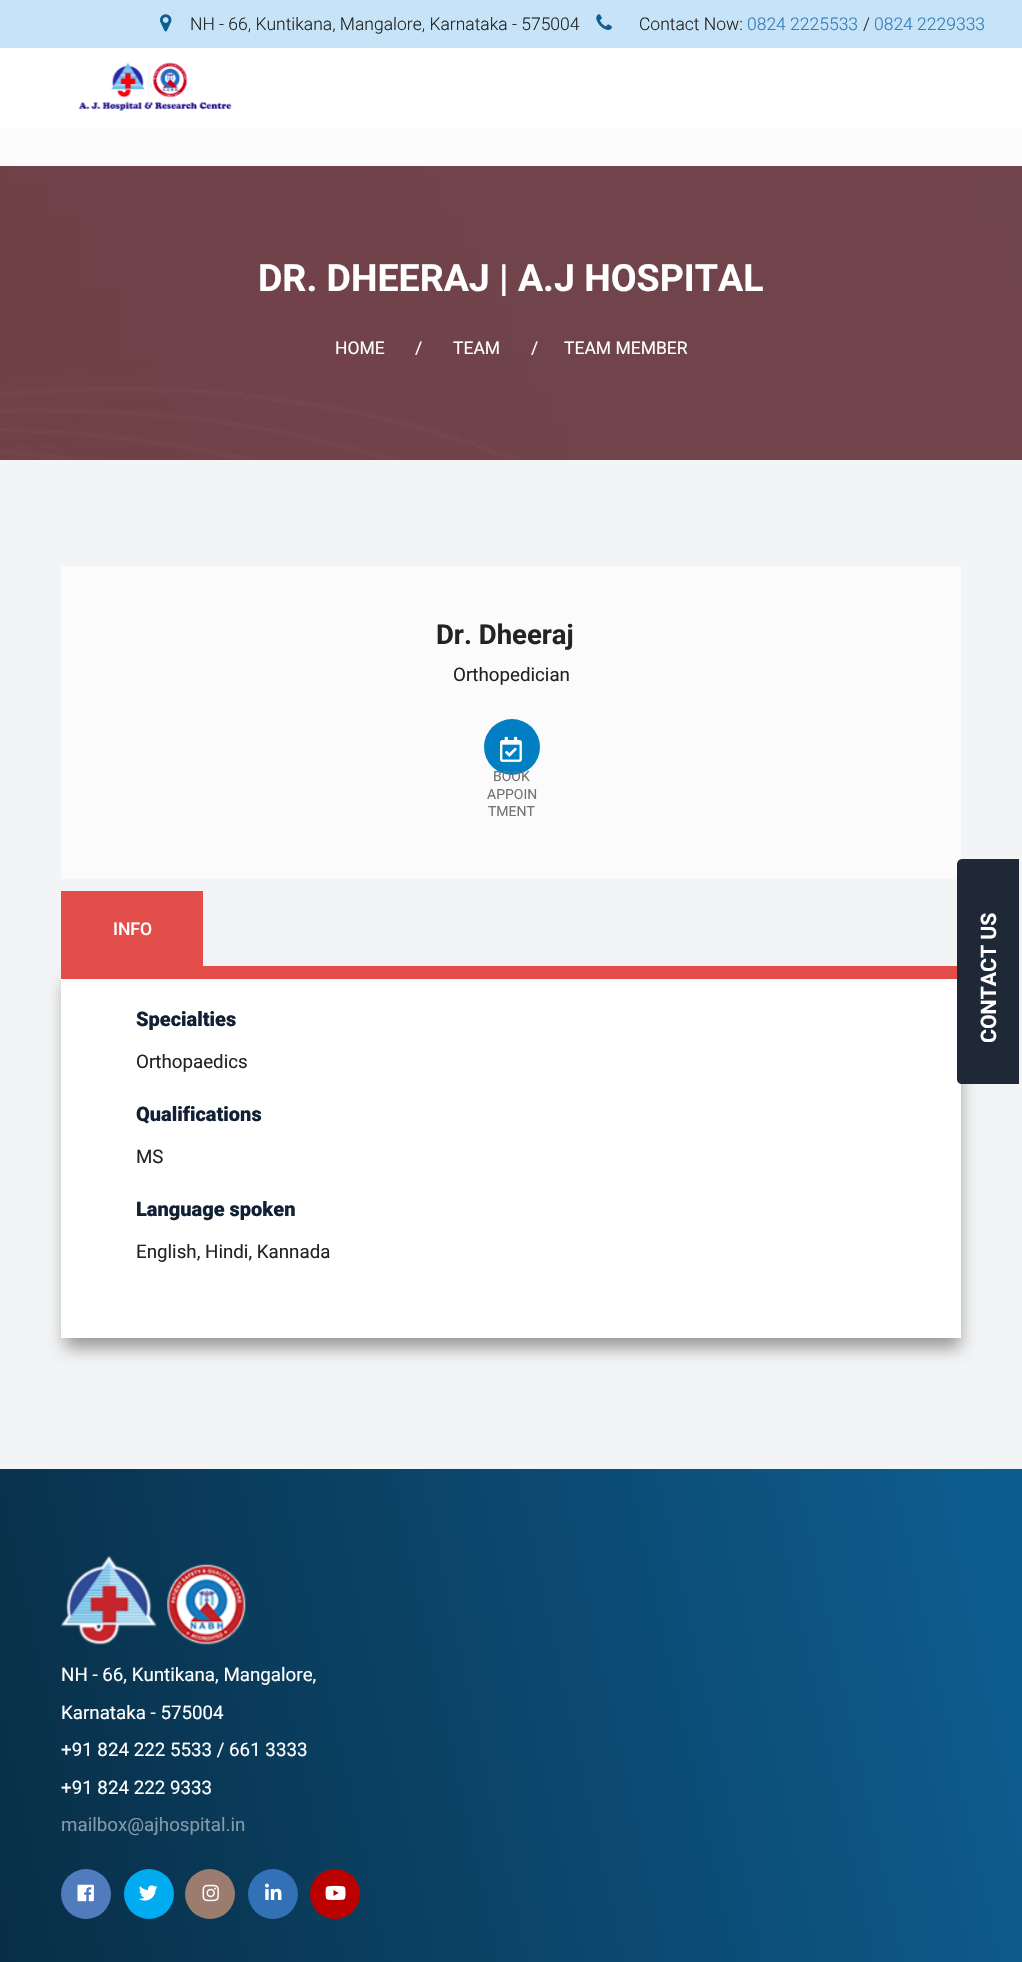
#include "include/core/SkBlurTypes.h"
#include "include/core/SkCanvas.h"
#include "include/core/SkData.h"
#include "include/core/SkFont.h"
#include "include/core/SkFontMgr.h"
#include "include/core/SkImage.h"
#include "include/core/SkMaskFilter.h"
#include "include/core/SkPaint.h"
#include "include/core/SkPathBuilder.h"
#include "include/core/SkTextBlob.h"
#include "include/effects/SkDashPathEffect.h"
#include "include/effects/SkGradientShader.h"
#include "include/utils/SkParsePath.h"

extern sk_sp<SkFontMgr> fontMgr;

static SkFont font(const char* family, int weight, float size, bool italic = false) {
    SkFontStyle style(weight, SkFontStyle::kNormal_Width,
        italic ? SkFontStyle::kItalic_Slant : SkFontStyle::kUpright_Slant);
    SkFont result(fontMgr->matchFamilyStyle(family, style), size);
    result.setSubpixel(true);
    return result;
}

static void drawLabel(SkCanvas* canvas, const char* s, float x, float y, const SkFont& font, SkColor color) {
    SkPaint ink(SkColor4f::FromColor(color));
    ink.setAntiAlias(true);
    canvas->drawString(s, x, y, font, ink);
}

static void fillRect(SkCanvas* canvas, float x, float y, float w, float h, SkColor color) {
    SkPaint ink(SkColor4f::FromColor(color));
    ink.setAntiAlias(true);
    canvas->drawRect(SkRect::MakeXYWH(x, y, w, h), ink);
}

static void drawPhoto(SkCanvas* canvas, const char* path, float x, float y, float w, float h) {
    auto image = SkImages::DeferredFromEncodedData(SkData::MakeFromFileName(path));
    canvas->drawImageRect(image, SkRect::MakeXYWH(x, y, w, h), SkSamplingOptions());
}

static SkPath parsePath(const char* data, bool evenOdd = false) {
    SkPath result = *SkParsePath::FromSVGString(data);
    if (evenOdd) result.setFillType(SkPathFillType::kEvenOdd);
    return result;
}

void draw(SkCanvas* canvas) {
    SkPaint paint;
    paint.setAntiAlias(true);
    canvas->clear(0xFFFBFBFB);
    fillRect(canvas, 0, 0, 1022, 48, 0xFFC6E3F7);
    drawPhoto(canvas, "assets/img1.png", 160, 14, 12, 18);
    SkFont font1 = font("Roboto", 300, 17.5f);
    drawLabel(canvas, "NH - 66, Kuntikana, Mangalore, Karnataka - 575004", 190, 30, font1, 0xFF222323);
    drawPhoto(canvas, "assets/img2.png", 596, 14, 16, 16);
    drawLabel(canvas, "Contact Now:", 639, 30, font1, 0xFF222323);
    drawLabel(canvas, "0824 2225533", 747, 30, font1, 0xFF337AB7);
    drawLabel(canvas, "/", 863, 30, font1, 0xFF222323);
    drawLabel(canvas, "0824 2229333", 874, 30, font1, 0xFF337AB7);
    fillRect(canvas, 0, 48, 1022, 80, 0xFFFFFFFF);
    drawPhoto(canvas, "assets/img3.png", 78, 62, 154, 49);
    drawPhoto(canvas, "assets/img4.png", 0, 166, 1022, 294);
    SkFont font2 = font("Roboto", 700, 37.5f);
    drawLabel(canvas, "DR. DHEERAJ | A.J HOSPITAL", 258, 291, font2, 0xFFFFFFFF);
    SkFont font3 = font("Roboto", 400, 17.5f);
    drawLabel(canvas, "HOME", 335, 354, font3, 0xFFFFFFFF);
    drawLabel(canvas, "/", 415, 354, font3, 0xFFFFFFFF);
    drawLabel(canvas, "TEAM", 453, 354, font3, 0xFFFFFFFF);
    drawLabel(canvas, "/", 531, 354, font3, 0xFFFFFFFF);
    drawLabel(canvas, "TEAM MEMBER", 564, 354, font3, 0xFFFFFFFF);
    fillRect(canvas, 0, 460, 1022, 1009, 0xFFF3F4F5);
    fillRect(canvas, 61, 566, 900, 313, 0xFFFBFBFB);
    SkFont font4 = font("Roboto", 700, 27.5f);
    drawLabel(canvas, "Dr. Dheeraj", 436, 644, font4, 0xFF222323);
    SkFont font5 = font("Roboto", 400, 18.75f);
    drawLabel(canvas, "Orthopedician", 453, 681, font5, 0xFF222323);
    paint.setColor(0xFF027FC2);
    canvas->drawCircle(512, 747, 28, paint);
    drawPhoto(canvas, "assets/img5.png", 500, 736, 22, 26);
    SkFont font6 = font("Roboto", 400, 14);
    drawLabel(canvas, "BOOK", 493, 781, font6, 0xFF717171);
    drawLabel(canvas, "APPOIN", 487, 799, font6, 0xFF717171);
    drawLabel(canvas, "TMENT", 488, 816, font6, 0xFF717171);
    fillRect(canvas, 61, 891, 142, 75, 0xFFE34D4A);
    SkFont font7 = font("Roboto", 500, 17.5f);
    drawLabel(canvas, "INFO", 113, 935, font7, 0xFFFFFFFF);
    paint.setColor(0xFF999999);
    paint.setMaskFilter(SkMaskFilter::MakeBlur(kNormal_SkBlurStyle, 8));
    canvas->drawRect(SkRect::MakeXYWH(65, 983, 895, 365), paint);
    paint.setMaskFilter(nullptr);
    fillRect(canvas, 61, 979, 900, 359, 0xFFFFFFFF);
    fillRect(canvas, 61, 966, 896, 13, 0xFFE34D4A);
    SkFont font8 = font("Roboto", 900, 20);
    drawLabel(canvas, "Specialties", 136, 1026, font8, 0xFF102035);
    drawLabel(canvas, "Orthopaedics", 136, 1068, font5, 0xFF222323);
    drawLabel(canvas, "Qualifications", 136, 1121, font8, 0xFF102035);
    drawLabel(canvas, "MS", 136, 1163, font5, 0xFF222323);
    drawLabel(canvas, "Language spoken", 136, 1216, font8, 0xFF102035);
    drawLabel(canvas, "English, Hindi, Kannada", 136, 1258, font5, 0xFF222323);
    paint.setColor(0xFF1F2836);
    canvas->drawPath(parsePath("M957 1079V864C957 862 959 859 962 859H1019V1084H962C959 1084 957 1082 957 1079Z"), paint);
    SkFont font9 = font("Roboto", 700, 21.25f);
    canvas->save();
    canvas->rotate(-90, 996, 1043);
    drawLabel(canvas, "CONTACT US", 996, 1043, font9, 0xFFFFFFFF);
    canvas->restore();
    {
        const SkColor colors[] = {0xFF0E5D90, 0xFF072538};
        const float stops[] = {0.02f, 0.98f};
        const SkPoint ends[] = {{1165, 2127}, {-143, 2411}};
        paint.setShader(SkGradientShader::MakeLinear(ends, colors, stops, 2, SkTileMode::kClamp));
        paint.setAlpha(255);
    }
    canvas->drawRect(SkRect::MakeXYWH(0, 1469, 1022, 493), paint);
    drawPhoto(canvas, "assets/img6.png", 61, 1556, 96, 89);
    drawPhoto(canvas, "assets/img7.png", 167, 1564, 79, 81);
    drawLabel(canvas, "NH - 66, Kuntikana, Mangalore,", 61, 1681, font5, 0xFFFFFFFF);
    drawLabel(canvas, "Karnataka - 575004", 61, 1719, font5, 0xFFFFFFFF);
    drawLabel(canvas, "+91 824 222 5533 / 661 3333", 61, 1756, font5, 0xFFFFFFFF);
    drawLabel(canvas, "+91 824 222 9333", 61, 1794, font5, 0xFFFFFFFF);
    drawLabel(canvas, "mailbox@ajhospital.in", 61, 1831, font5, 0xFF849AA9);
    paint.setShader(nullptr);
    paint.setColor(0xFF507CBE);
    canvas->drawCircle(86, 1894, 25, paint);
    drawPhoto(canvas, "assets/img8.png", 77, 1884, 17, 18);
    paint.setColor(0xFF00ABEF);
    canvas->drawCircle(149, 1894, 25, paint);
    drawPhoto(canvas, "assets/img9.png", 139, 1885, 19, 16);
    paint.setColor(0xFF9C7C6E);
    canvas->drawCircle(210, 1894, 25, paint);
    drawPhoto(canvas, "assets/img10.png", 202, 1884, 17, 18);
    paint.setColor(0xFF3371B7);
    canvas->drawCircle(273, 1894, 25, paint);
    drawPhoto(canvas, "assets/img11.png", 265, 1883, 17, 17);
    paint.setColor(0xFFBB0000);
    canvas->drawCircle(335, 1894, 25, paint);
    drawPhoto(canvas, "assets/img12.png", 325, 1885, 21, 15);
}
